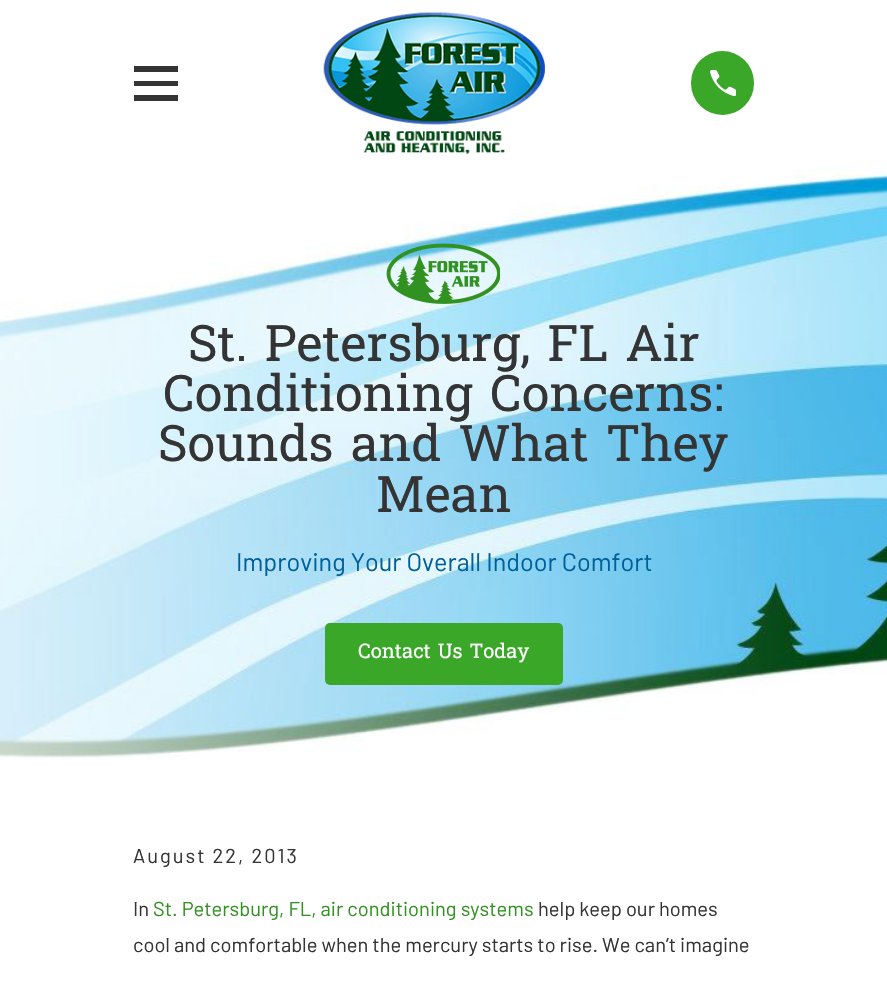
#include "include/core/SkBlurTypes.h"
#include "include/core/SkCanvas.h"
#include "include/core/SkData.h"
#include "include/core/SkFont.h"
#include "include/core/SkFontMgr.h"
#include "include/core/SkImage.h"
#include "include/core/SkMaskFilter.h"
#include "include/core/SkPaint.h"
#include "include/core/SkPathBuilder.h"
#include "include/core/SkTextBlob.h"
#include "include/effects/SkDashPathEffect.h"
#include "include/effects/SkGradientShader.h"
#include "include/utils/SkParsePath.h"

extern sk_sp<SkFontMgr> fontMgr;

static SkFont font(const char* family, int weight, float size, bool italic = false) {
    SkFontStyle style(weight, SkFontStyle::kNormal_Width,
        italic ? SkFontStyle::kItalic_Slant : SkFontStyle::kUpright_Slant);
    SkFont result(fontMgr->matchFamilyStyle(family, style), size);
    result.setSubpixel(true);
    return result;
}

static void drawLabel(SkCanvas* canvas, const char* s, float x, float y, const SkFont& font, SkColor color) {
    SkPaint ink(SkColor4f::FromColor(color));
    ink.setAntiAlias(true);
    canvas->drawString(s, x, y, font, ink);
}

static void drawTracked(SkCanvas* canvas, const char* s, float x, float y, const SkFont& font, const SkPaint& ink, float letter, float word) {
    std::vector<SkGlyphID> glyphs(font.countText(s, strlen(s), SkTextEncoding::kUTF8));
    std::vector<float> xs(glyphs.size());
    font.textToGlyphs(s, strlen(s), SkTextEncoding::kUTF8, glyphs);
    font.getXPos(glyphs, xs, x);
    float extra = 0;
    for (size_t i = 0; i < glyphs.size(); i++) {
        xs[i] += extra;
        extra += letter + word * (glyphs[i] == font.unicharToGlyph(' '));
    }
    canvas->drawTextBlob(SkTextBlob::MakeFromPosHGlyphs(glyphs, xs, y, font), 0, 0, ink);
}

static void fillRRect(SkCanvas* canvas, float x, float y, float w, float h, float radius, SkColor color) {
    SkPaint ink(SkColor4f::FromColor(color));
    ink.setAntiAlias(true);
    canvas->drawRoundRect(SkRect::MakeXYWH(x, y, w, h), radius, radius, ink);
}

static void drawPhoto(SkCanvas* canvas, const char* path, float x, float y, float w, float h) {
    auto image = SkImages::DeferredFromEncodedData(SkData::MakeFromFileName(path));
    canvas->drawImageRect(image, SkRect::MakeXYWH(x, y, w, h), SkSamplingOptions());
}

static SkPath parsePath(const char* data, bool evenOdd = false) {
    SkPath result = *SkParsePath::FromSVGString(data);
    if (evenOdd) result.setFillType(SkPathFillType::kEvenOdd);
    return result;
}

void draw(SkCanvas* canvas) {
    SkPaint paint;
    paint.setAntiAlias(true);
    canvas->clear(0xFFFFFFFF);
    paint.setColor(0xFF343434);
    canvas->drawPath(parsePath("M134 66V72H178V66ZM134 81V86H178V81ZM134 95V101H178V95Z"), paint);
    drawPhoto(canvas, "assets/img1.png", 323, 12, 222, 142);
    fillRRect(canvas, 691, 51, 63, 64, 31.5f, 0xFF3BA728);
    drawPhoto(canvas, "assets/img2.png", 710, 70, 26, 26);
    drawPhoto(canvas, "assets/img3.png", 0, 167, 887, 593);
    drawPhoto(canvas, "assets/img4.png", 386, 243, 114, 61);
    SkFont font1 = font("Hanuman", 400, 50.25f);
    drawLabel(canvas, "St. Petersburg, FL Air", 188, 361, font1, 0xFF343434);
    drawLabel(canvas, "Conditioning Concerns:", 163, 411, font1, 0xFF343434);
    drawLabel(canvas, "Sounds and What They", 158, 461, font1, 0xFF343434);
    drawLabel(canvas, "Mean", 376, 512, font1, 0xFF343434);
    SkFont font2 = font("Barlow", 400, 25.2f);
    drawLabel(canvas, "Improving Your Overall Indoor Comfort", 236, 571, font2, 0xFF00619A);
    fillRRect(canvas, 325, 623, 238, 62, 5, 0xFF3BA728);
    SkFont font3 = font("Hanuman", 400, 20.1f);
    drawLabel(canvas, "Contact Us Today", 358, 658, font3, 0xFFFFFFFF);
    SkFont font4 = font("Barlow", 400, 20.1f);
    drawTracked(canvas, "August 22, 2013", 133, 863, font4, paint, 2, 0);
    drawLabel(canvas, "In", 133, 916, font4, 0xFF343434);
    drawLabel(canvas, "St. Petersburg, FL, air conditioning systems", 153, 916, font4, 0xFF329221);
    drawLabel(canvas, "help keep our homes", 538, 916, font4, 0xFF343434);
    drawLabel(canvas, "cool and comfortable when the mercury starts to rise. We can’t imagine", 133, 952, font4, 0xFF343434);
}
